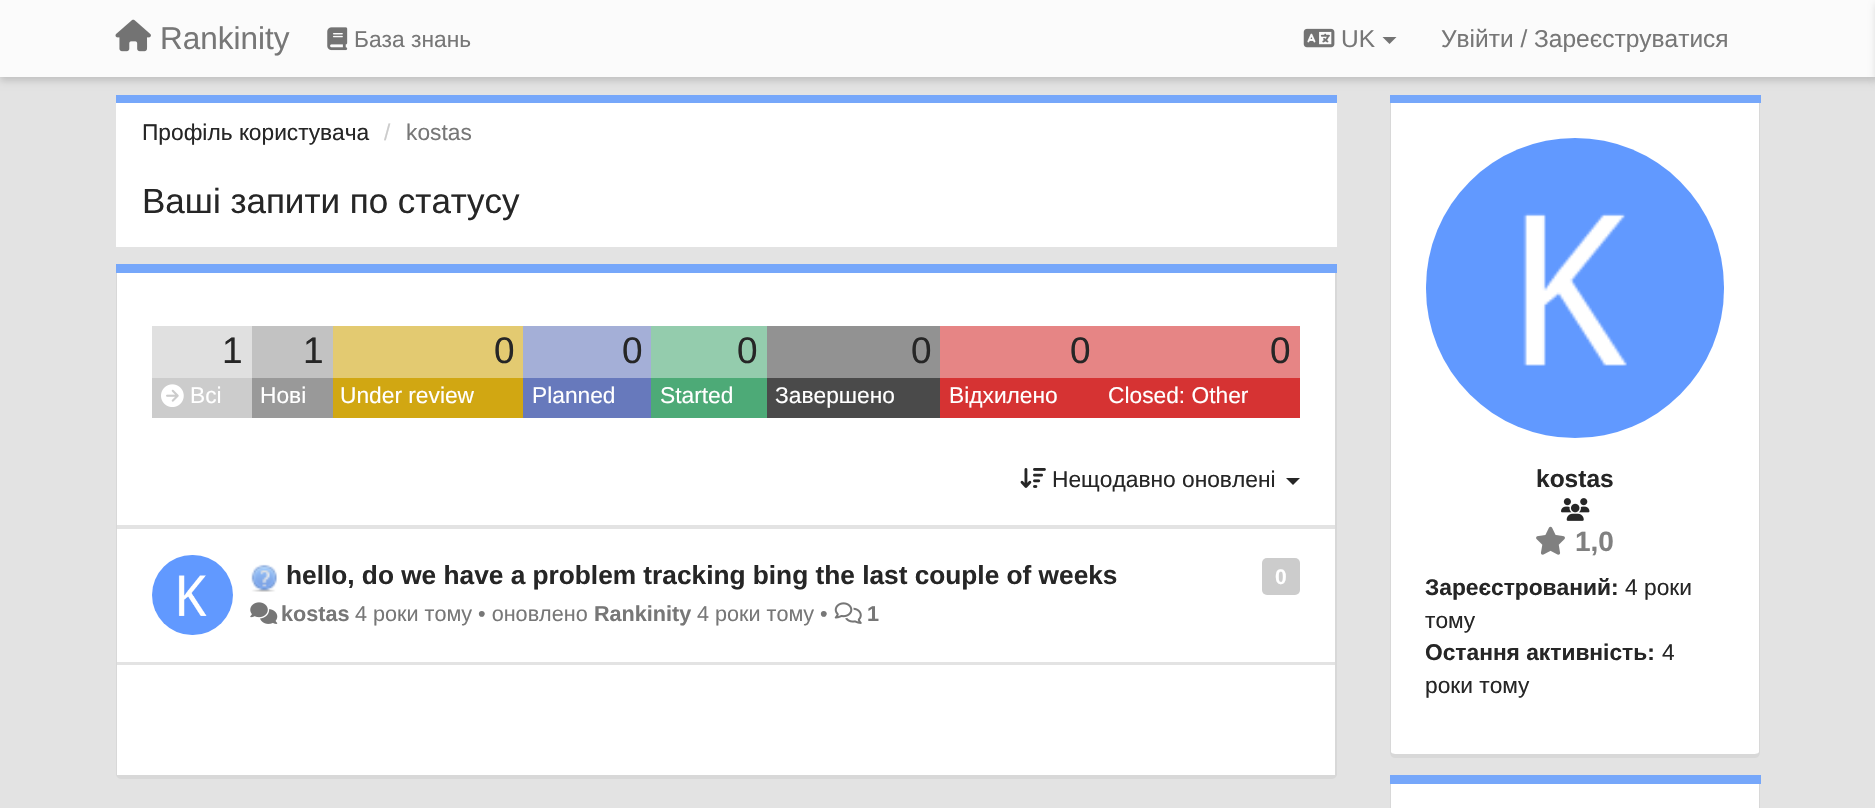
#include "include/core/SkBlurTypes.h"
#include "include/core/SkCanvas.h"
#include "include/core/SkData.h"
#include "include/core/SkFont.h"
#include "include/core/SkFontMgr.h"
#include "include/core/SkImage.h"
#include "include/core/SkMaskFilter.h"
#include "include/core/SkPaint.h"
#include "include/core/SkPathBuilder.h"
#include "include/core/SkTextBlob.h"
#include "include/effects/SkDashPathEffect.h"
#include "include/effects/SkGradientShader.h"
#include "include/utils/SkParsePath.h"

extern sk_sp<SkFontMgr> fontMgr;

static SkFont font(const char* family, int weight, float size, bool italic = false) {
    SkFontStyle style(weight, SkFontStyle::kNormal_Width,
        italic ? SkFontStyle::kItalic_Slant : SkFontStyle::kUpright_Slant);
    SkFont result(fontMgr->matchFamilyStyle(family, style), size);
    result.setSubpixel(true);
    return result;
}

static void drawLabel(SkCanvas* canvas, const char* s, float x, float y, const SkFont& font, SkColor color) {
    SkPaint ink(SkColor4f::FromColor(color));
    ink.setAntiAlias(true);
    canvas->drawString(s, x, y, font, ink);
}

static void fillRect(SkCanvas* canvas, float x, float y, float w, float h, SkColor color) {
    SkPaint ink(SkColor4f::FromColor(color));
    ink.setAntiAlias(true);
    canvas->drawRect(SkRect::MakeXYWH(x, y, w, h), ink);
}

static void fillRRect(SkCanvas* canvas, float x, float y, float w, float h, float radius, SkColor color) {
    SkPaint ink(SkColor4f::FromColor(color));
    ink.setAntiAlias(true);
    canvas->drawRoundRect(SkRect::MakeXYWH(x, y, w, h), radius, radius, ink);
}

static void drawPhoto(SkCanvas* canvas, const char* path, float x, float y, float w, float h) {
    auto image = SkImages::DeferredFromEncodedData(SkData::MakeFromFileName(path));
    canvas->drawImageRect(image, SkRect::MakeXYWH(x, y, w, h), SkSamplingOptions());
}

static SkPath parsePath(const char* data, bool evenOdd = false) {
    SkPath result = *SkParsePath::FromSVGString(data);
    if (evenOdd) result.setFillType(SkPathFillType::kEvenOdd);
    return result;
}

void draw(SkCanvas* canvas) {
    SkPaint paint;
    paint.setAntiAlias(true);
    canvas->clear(0xFFE3E3E3);
    paint.setColor(0x26000000);
    paint.setMaskFilter(SkMaskFilter::MakeBlur(kNormal_SkBlurStyle, 3.5f));
    canvas->drawRect(SkRect::MakeXYWH(0, 4, 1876, 77), paint);
    paint.setMaskFilter(nullptr);
    fillRect(canvas, 0, 0, 1875, 77, 0xFFFBFBFB);
    drawPhoto(canvas, "assets/img1.png", 115, 19, 36, 33);
    SkFont font1 = font("Liberation Sans", 400, 31.5f);
    drawLabel(canvas, "Rankinity", 160, 49, font1, 0xFF777777);
    drawPhoto(canvas, "assets/img2.png", 327, 27, 21, 24);
    SkFont font2 = font("Liberation Sans", 400, 22.75f);
    drawLabel(canvas, "База знань", 354, 47, font2, 0xFF777777);
    drawPhoto(canvas, "assets/img3.png", 1303, 28, 32, 20);
    SkFont font3 = font("Liberation Sans", 400, 24.5f);
    drawLabel(canvas, "UK", 1341, 47, font3, 0xFF777777);
    paint.setColor(0xFF737373);
    canvas->drawPath(parsePath("M1382.5 37H1396.5L1389.5 44Z"), paint);
    drawLabel(canvas, "Увійти / Зареєструватися", 1441, 47, font3, 0xFF777777);
    paint.setColor(0x26000000);
    paint.setMaskFilter(SkMaskFilter::MakeBlur(kNormal_SkBlurStyle, 3.5f));
    canvas->drawRect(SkRect::MakeXYWH(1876, 4, 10, 77), paint);
    paint.setMaskFilter(nullptr);
    fillRect(canvas, 116, 103, 1221, 144, 0xFFFFFFFF);
    fillRect(canvas, 116, 95, 1221, 8, 0xFF76A7FA);
    drawLabel(canvas, "Профіль користувача", 142, 140, font2, 0xFF262626);
    drawLabel(canvas, "/", 384, 140, font2, 0xFFCCCCCC);
    drawLabel(canvas, "kostas", 406, 140, font2, 0xFF777777);
    SkFont font4 = font("Liberation Sans", 400, 35);
    drawLabel(canvas, "Ваші запити по статусу", 142, 213, font4, 0xFF262626);
    fillRect(canvas, 116, 264, 1221, 9, 0xFF76A7FA);
    paint.setColor(0xFFD8D8D8);
    canvas->drawPath(parsePath("M116 273H1337V774C1337 776 1335 779 1332 779H121C118 779 116 776 116 774ZM117 273H1335V774C1335 774 1334 775 1332 775H121C119 775 117 774 117 774Z", true), paint);
    fillRect(canvas, 117, 273, 1218, 252, 0xFFFFFFFF);
    fillRect(canvas, 152, 326, 100, 52, 0xFFE0E0E0);
    SkFont font5 = font("Liberation Sans", 400, 37);
    drawLabel(canvas, "1", 222, 363, font5, 0xFF262626);
    fillRect(canvas, 252, 326, 81, 52, 0xFFC2C2C2);
    drawLabel(canvas, "1", 303, 363, font5, 0xFF262626);
    fillRect(canvas, 333, 326, 190, 52, 0xFFE3CA71);
    drawLabel(canvas, "0", 494, 363, font5, 0xFF262626);
    fillRect(canvas, 523, 326, 128, 52, 0xFFA4AFD7);
    drawLabel(canvas, "0", 622, 363, font5, 0xFF262626);
    fillRect(canvas, 651, 326, 116, 52, 0xFF94CCAD);
    drawLabel(canvas, "0", 737, 363, font5, 0xFF262626);
    fillRect(canvas, 767, 326, 173, 52, 0xFF929292);
    drawLabel(canvas, "0", 911, 363, font5, 0xFF262626);
    fillRect(canvas, 940, 326, 360, 52, 0xFFE68585);
    drawLabel(canvas, "0", 1070, 363, font5, 0xFF262626);
    drawLabel(canvas, "0", 1270, 363, font5, 0xFF262626);
    fillRect(canvas, 152, 378, 100, 40, 0xFFCCCCCC);
    drawPhoto(canvas, "assets/img4.png", 161, 384, 23, 23);
    drawLabel(canvas, "Всі", 190, 403, font2, 0xFFFFFFFF);
    fillRect(canvas, 252, 378, 81, 40, 0xFF999999);
    drawLabel(canvas, "Нові", 260, 403, font2, 0xFFFFFFFF);
    fillRect(canvas, 333, 378, 190, 40, 0xFFD1A712);
    drawLabel(canvas, "Under review", 340, 403, font2, 0xFFFFFFFF);
    fillRect(canvas, 523, 378, 128, 40, 0xFF6779BC);
    drawLabel(canvas, "Planned", 532, 403, font2, 0xFFFFFFFF);
    fillRect(canvas, 651, 378, 116, 40, 0xFF4DAA77);
    drawLabel(canvas, "Started", 660, 403, font2, 0xFFFFFFFF);
    fillRect(canvas, 767, 378, 173, 40, 0xFF4A4A4A);
    drawLabel(canvas, "Завершено", 775, 403, font2, 0xFFFFFFFF);
    fillRect(canvas, 940, 378, 360, 40, 0xFFD63333);
    drawLabel(canvas, "Відхилено", 949, 403, font2, 0xFFFFFFFF);
    drawLabel(canvas, "Closed: Other", 1108, 403, font2, 0xFFFFFFFF);
    drawPhoto(canvas, "assets/img5.png", 1020, 468, 26, 20);
    drawLabel(canvas, "Нещодавно оновлені", 1052, 487, font2, 0xFF262626);
    paint.setColor(0xFF262626);
    canvas->drawPath(parsePath("M1286 478H1300L1293 485Z"), paint);
    fillRect(canvas, 117, 529, 1218, 133, 0xFFFFFFFF);
    fillRRect(canvas, 152, 555, 81, 80, 40, 0xFF6199FF);
    drawPhoto(canvas, "assets/img6.png", 178, 575, 29, 41);
    drawPhoto(canvas, "assets/img7.png", 251, 564, 26, 28);
    SkFont font6 = font("Liberation Sans", 700, 26.25f);
    drawLabel(canvas, "hello, do we have a problem tracking bing the last couple of weeks", 286, 584, font6, 0xFF262626);
    fillRRect(canvas, 1262, 558, 38, 37, 5, 0xFFCCCCCC);
    SkFont font7 = font("Liberation Sans", 700, 21);
    drawLabel(canvas, "0", 1275, 584, font7, 0xFFFFFFFF);
    drawPhoto(canvas, "assets/img8.png", 250, 602, 28, 22);
    SkFont font8 = font("Liberation Sans", 700, 21.6f);
    drawLabel(canvas, "kostas", 281, 621, font8, 0xFF777777);
    SkFont font9 = font("Liberation Sans", 400, 21.6f);
    drawLabel(canvas, "4 роки тому • оновлено", 355, 621, font9, 0xFF777777);
    drawLabel(canvas, "Rankinity", 594, 621, font8, 0xFF777777);
    drawLabel(canvas, "4 роки тому •", 697, 621, font9, 0xFF777777);
    drawPhoto(canvas, "assets/img9.png", 834, 602, 28, 22);
    drawLabel(canvas, "1", 867, 621, font8, 0xFF777777);
    fillRect(canvas, 117, 665, 1218, 110, 0xFFFFFFFF);
    fillRect(canvas, 1390, 95, 371, 8, 0xFF76A7FA);
    paint.setColor(0xFFFFFFFF);
    canvas->drawPath(parsePath("M1391 103H1759V752C1759 753 1757 754 1755 754H1395C1393 754 1391 753 1391 752Z"), paint);
    paint.setColor(0xFFD8D8D8);
    canvas->drawPath(parsePath("M1390 103H1760V752C1760 755 1758 758 1755 758H1395C1392 758 1390 755 1390 752ZM1391 103H1759V752C1759 753 1757 754 1755 754H1395C1393 754 1391 753 1391 752Z", true), paint);
    fillRRect(canvas, 1426, 138, 298, 300, 149, 0xFF6199FF);
    drawPhoto(canvas, "assets/img10.png", 1523, 213, 104, 153);
    SkFont font10 = font("Liberation Sans", 700, 24.5f);
    drawLabel(canvas, "kostas", 1536, 487, font10, 0xFF262626);
    drawPhoto(canvas, "assets/img11.png", 1561, 498, 29, 23);
    drawPhoto(canvas, "assets/img12.png", 1536, 526, 29, 29);
    SkFont font11 = font("Liberation Sans", 700, 28);
    drawLabel(canvas, "1,0", 1575, 551, font11, 0xFF808080);
    SkFont font12 = font("Liberation Sans", 700, 22.75f);
    drawLabel(canvas, "Зареєстрований:", 1425, 595, font12, 0xFF262626);
    drawLabel(canvas, "4 роки", 1625, 595, font2, 0xFF262626);
    drawLabel(canvas, "тому", 1425, 628, font2, 0xFF262626);
    drawLabel(canvas, "Остання активність:", 1425, 660, font12, 0xFF262626);
    drawLabel(canvas, "4", 1662, 660, font2, 0xFF262626);
    drawLabel(canvas, "роки тому", 1425, 693, font2, 0xFF262626);
    fillRect(canvas, 1390, 775, 371, 9, 0xFF76A7FA);
    paint.setColor(0xFFFFFFFF);
    canvas->drawPath(parsePath("M1391 784H1759V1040C1759 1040 1757 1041 1755 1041H1395C1393 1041 1391 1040 1391 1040Z"), paint);
    paint.setColor(0xFFD8D8D8);
    canvas->drawPath(parsePath("M1390 784H1760V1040C1760 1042 1758 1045 1755 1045H1395C1392 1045 1390 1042 1390 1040ZM1391 784H1759V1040C1759 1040 1757 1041 1755 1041H1395C1393 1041 1391 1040 1391 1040Z", true), paint);
}
